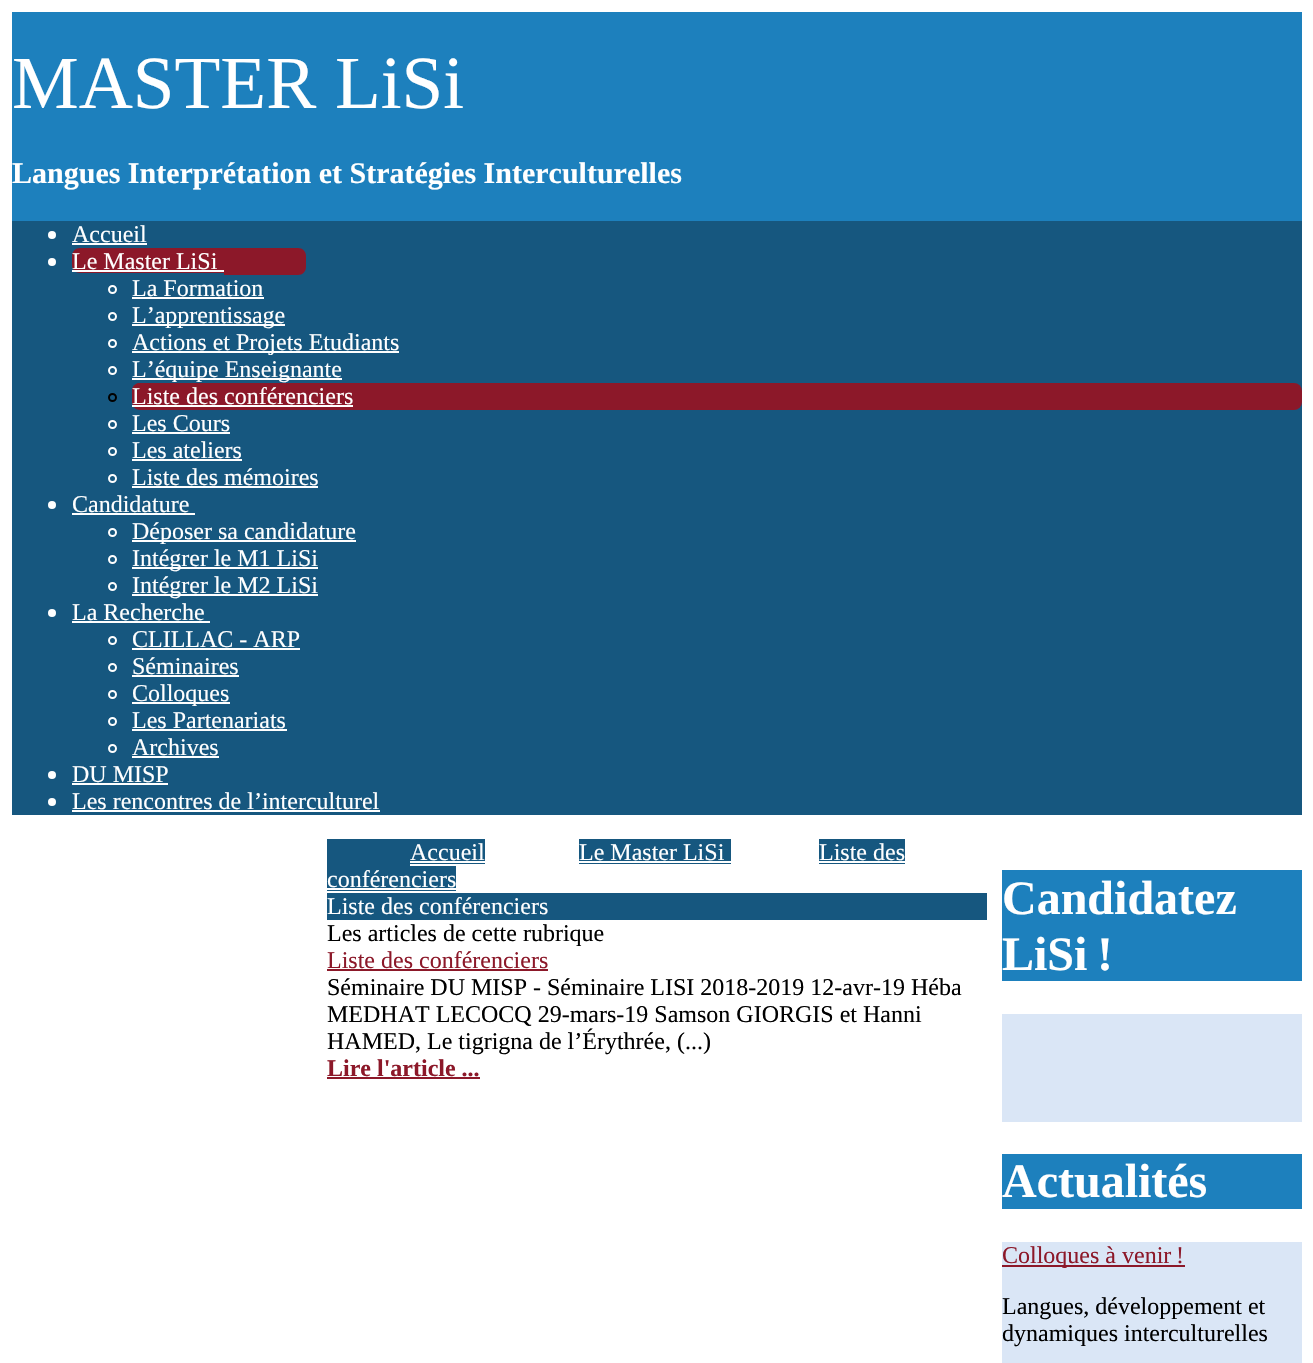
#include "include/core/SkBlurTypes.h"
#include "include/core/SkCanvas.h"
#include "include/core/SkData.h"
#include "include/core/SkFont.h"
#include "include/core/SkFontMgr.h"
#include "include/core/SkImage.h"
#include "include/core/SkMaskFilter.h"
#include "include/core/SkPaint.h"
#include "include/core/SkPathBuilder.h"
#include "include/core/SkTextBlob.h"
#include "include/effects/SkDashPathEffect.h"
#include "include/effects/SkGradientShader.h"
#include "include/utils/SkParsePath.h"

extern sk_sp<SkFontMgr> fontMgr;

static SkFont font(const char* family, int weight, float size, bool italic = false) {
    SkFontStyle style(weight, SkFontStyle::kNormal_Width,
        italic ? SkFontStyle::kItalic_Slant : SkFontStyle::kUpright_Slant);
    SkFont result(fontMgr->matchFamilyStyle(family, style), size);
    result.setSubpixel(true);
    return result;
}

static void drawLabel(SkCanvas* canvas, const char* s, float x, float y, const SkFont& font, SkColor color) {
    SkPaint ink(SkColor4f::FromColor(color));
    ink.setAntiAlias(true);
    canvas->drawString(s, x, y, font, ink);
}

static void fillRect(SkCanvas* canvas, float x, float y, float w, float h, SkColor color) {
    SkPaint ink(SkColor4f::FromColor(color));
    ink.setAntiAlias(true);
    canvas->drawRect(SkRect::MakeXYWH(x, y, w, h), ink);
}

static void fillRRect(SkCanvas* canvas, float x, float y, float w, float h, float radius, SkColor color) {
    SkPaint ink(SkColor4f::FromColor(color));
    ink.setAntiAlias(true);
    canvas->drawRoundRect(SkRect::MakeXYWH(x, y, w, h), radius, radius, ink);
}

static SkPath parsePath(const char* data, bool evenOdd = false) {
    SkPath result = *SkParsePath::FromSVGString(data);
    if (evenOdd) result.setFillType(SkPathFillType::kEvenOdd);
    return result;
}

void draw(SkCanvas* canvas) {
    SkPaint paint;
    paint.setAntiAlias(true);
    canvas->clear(0xFFFFFFFF);
    fillRect(canvas, 12, 12, 1290, 209, 0xFF1D80BD);
    SkFont font1 = font("Liberation Serif", 400, 75);
    drawLabel(canvas, "MASTER LiSi", 12, 108, font1, 0xFFFFFFFF);
    SkFont font2 = font("Liberation Serif", 700, 30);
    drawLabel(canvas, "Langues Interprétation et Stratégies Interculturelles", 12, 183, font2, 0xFFFFFFFF);
    fillRect(canvas, 12, 221, 1290, 594, 0xFF16577F);
    paint.setColor(0xFFFFFFFF);
    canvas->drawCircle(52, 235, 4, paint);
    SkFont font3 = font("Liberation Serif", 400, 24);
    drawLabel(canvas, "Accueil", 72, 242, font3, 0xFFFFFFFF);
    fillRect(canvas, 72, 243, 75, 2, 0xFFFFFFFF);
    canvas->drawCircle(52, 262, 4, paint);
    paint.setColor(0xFF8C1829);
    canvas->drawPath(parsePath("M80 248H224V273H80C75.5 273 72 269.5 72 265V256C72 251.5 75.5 248 80 248Z"), paint);
    drawLabel(canvas, "Le Master LiSi", 72, 269, font3, 0xFFFFFFFF);
    canvas->drawPath(parsePath("M224 248H298C302.5 248 306 251.5 306 256V267C306 271.5 302.5 275 298 275H224Z"), paint);
    fillRect(canvas, 72, 270, 152, 2, 0xFFFFFFFF);
    paint.setStroke(true);
    paint.setStrokeWidth(2);
    paint.setColor(0xFFFFFFFF);
    canvas->drawCircle(112.5f, 289.5f, 3.5f, paint);
    drawLabel(canvas, "La Formation", 132, 296, font3, 0xFFFFFFFF);
    fillRect(canvas, 132, 297, 132, 2, 0xFFFFFFFF);
    canvas->drawCircle(112.5f, 316.5f, 3.5f, paint);
    fillRect(canvas, 132, 324, 153, 2, 0xFFFFFFFF);
    drawLabel(canvas, "L’apprentissage", 132, 323, font3, 0xFFFFFFFF);
    canvas->drawCircle(112.5f, 343.5f, 3.5f, paint);
    fillRect(canvas, 132, 351, 267, 2, 0xFFFFFFFF);
    drawLabel(canvas, "Actions et Projets Etudiants", 132, 350, font3, 0xFFFFFFFF);
    canvas->drawCircle(112.5f, 370.5f, 3.5f, paint);
    fillRect(canvas, 132, 378, 210, 2, 0xFFFFFFFF);
    drawLabel(canvas, "L’équipe Enseignante", 132, 377, font3, 0xFFFFFFFF);
    fillRRect(canvas, 132, 383, 1170, 27, 8, 0xFF8C1829);
    paint.setColor(0xFF000000);
    canvas->drawCircle(112.5f, 397.5f, 3.5f, paint);
    fillRRect(canvas, 132, 383, 221, 25, 8, 0xFF8C1829);
    drawLabel(canvas, "Liste des conférenciers", 132, 404, font3, 0xFFFFFFFF);
    fillRect(canvas, 132, 405, 221, 2, 0xFFFFFFFF);
    paint.setColor(0xFFFFFFFF);
    canvas->drawCircle(112.5f, 424.5f, 3.5f, paint);
    drawLabel(canvas, "Les Cours", 132, 431, font3, 0xFFFFFFFF);
    fillRect(canvas, 132, 432, 98, 2, 0xFFFFFFFF);
    canvas->drawCircle(112.5f, 451.5f, 3.5f, paint);
    drawLabel(canvas, "Les ateliers", 132, 458, font3, 0xFFFFFFFF);
    fillRect(canvas, 132, 459, 110, 2, 0xFFFFFFFF);
    canvas->drawCircle(112.5f, 478.5f, 3.5f, paint);
    drawLabel(canvas, "Liste des mémoires", 132, 485, font3, 0xFFFFFFFF);
    fillRect(canvas, 132, 486, 186, 2, 0xFFFFFFFF);
    paint.setStroke(false);
    canvas->drawCircle(52, 505, 4, paint);
    drawLabel(canvas, "Candidature", 72, 512, font3, 0xFFFFFFFF);
    fillRect(canvas, 72, 513, 123, 2, 0xFFFFFFFF);
    paint.setStroke(true);
    canvas->drawCircle(112.5f, 532.5f, 3.5f, paint);
    fillRect(canvas, 132, 540, 224, 2, 0xFFFFFFFF);
    drawLabel(canvas, "Déposer sa candidature", 132, 539, font3, 0xFFFFFFFF);
    canvas->drawCircle(112.5f, 559.5f, 3.5f, paint);
    fillRect(canvas, 132, 567, 186, 2, 0xFFFFFFFF);
    drawLabel(canvas, "Intégrer le M1 LiSi", 132, 566, font3, 0xFFFFFFFF);
    canvas->drawCircle(112.5f, 586.5f, 3.5f, paint);
    fillRect(canvas, 132, 594, 186, 2, 0xFFFFFFFF);
    drawLabel(canvas, "Intégrer le M2 LiSi", 132, 593, font3, 0xFFFFFFFF);
    paint.setStroke(false);
    canvas->drawCircle(52, 613, 4, paint);
    drawLabel(canvas, "La Recherche", 72, 620, font3, 0xFFFFFFFF);
    fillRect(canvas, 72, 621, 138, 2, 0xFFFFFFFF);
    paint.setStroke(true);
    canvas->drawCircle(112.5f, 640.5f, 3.5f, paint);
    drawLabel(canvas, "CLILLAC - ARP", 132, 647, font3, 0xFFFFFFFF);
    fillRect(canvas, 132, 648, 168, 2, 0xFFFFFFFF);
    canvas->drawCircle(112.5f, 667.5f, 3.5f, paint);
    drawLabel(canvas, "Séminaires", 132, 674, font3, 0xFFFFFFFF);
    fillRect(canvas, 132, 675, 107, 2, 0xFFFFFFFF);
    canvas->drawCircle(112.5f, 694.5f, 3.5f, paint);
    fillRect(canvas, 132, 702, 98, 2, 0xFFFFFFFF);
    drawLabel(canvas, "Colloques", 132, 701, font3, 0xFFFFFFFF);
    canvas->drawCircle(112.5f, 721.5f, 3.5f, paint);
    drawLabel(canvas, "Les Partenariats", 132, 728, font3, 0xFFFFFFFF);
    fillRect(canvas, 132, 729, 155, 2, 0xFFFFFFFF);
    canvas->drawCircle(112.5f, 748.5f, 3.5f, paint);
    drawLabel(canvas, "Archives", 132, 755, font3, 0xFFFFFFFF);
    fillRect(canvas, 132, 756, 87, 2, 0xFFFFFFFF);
    paint.setStroke(false);
    canvas->drawCircle(52, 775, 4, paint);
    drawLabel(canvas, "DU MISP", 72, 782, font3, 0xFFFFFFFF);
    fillRect(canvas, 72, 783, 96, 2, 0xFFFFFFFF);
    canvas->drawCircle(52, 802, 4, paint);
    drawLabel(canvas, "Les rencontres de l’interculturel", 72, 809, font3, 0xFFFFFFFF);
    fillRect(canvas, 72, 810, 308, 2, 0xFFFFFFFF);
    fillRect(canvas, 327, 839, 83, 27, 0xFF16577F);
    fillRect(canvas, 410, 839, 75, 25, 0xFF16577F);
    drawLabel(canvas, "Accueil", 410, 860, font3, 0xFFFFFFFF);
    fillRect(canvas, 410, 861, 75, 2, 0xFFFFFFFF);
    fillRect(canvas, 579, 839, 152, 25, 0xFF16577F);
    drawLabel(canvas, "Le Master LiSi", 579, 860, font3, 0xFFFFFFFF);
    fillRect(canvas, 579, 861, 152, 2, 0xFFFFFFFF);
    fillRect(canvas, 819, 839, 86, 25, 0xFF16577F);
    drawLabel(canvas, "Liste des", 819, 860, font3, 0xFFFFFFFF);
    fillRect(canvas, 819, 861, 86, 2, 0xFFFFFFFF);
    fillRect(canvas, 327, 866, 129, 25, 0xFF16577F);
    drawLabel(canvas, "conférenciers", 327, 887, font3, 0xFFFFFFFF);
    fillRect(canvas, 327, 888, 129, 2, 0xFFFFFFFF);
    fillRect(canvas, 327, 893, 660, 27, 0xFF16577F);
    drawLabel(canvas, "Liste des conférenciers", 327, 914, font3, 0xFFFFFFFF);
    drawLabel(canvas, "Les articles de cette rubrique", 327, 941, font3, 0xFF000000);
    drawLabel(canvas, "Liste des conférenciers", 327, 968, font3, 0xFF8C1829);
    fillRect(canvas, 327, 969, 221, 2, 0xFF8C1829);
    drawLabel(canvas, "Séminaire DU MISP - Séminaire LISI 2018-2019 12-avr-19 Héba", 327, 995, font3, 0xFF000000);
    drawLabel(canvas, "MEDHAT LECOCQ 29-mars-19 Samson GIORGIS et Hanni", 327, 1022, font3, 0xFF000000);
    drawLabel(canvas, "HAMED, Le tigrigna de l’Érythrée, (...)", 327, 1049, font3, 0xFF000000);
    SkFont font4 = font("Liberation Serif", 700, 24);
    drawLabel(canvas, "Lire l'article ...", 327, 1076, font4, 0xFF8C1829);
    fillRect(canvas, 327, 1077, 153, 2, 0xFF8C1829);
    fillRect(canvas, 1002, 870, 300, 111, 0xFF1D80BD);
    SkFont font5 = font("Liberation Serif", 700, 48);
    drawLabel(canvas, "Candidatez", 1002, 914, font5, 0xFFFFFFFF);
    drawLabel(canvas, "LiSi", 1002, 970, font5, 0xFFFFFFFF);
    drawLabel(canvas, "!", 1097, 970, font5, 0xFFFFFFFF);
    fillRect(canvas, 1002, 1014, 300, 108, 0xFFDAE6F6);
    fillRect(canvas, 1002, 1154, 300, 55, 0xFF1D80BD);
    drawLabel(canvas, "Actualités", 1002, 1197, font5, 0xFFFFFFFF);
    fillRect(canvas, 1002, 1242, 300, 121, 0xFFDAE6F6);
    fillRect(canvas, 1002, 1265, 183, 2, 0xFF8C1829);
    drawLabel(canvas, "Colloques à venir", 1002, 1263, font3, 0xFF8C1829);
    drawLabel(canvas, "!", 1176, 1263, font3, 0xFF8C1829);
    drawLabel(canvas, "Langues, développement et", 1002, 1314, font3, 0xFF000000);
    drawLabel(canvas, "dynamiques interculturelles", 1002, 1341, font3, 0xFF000000);
}
